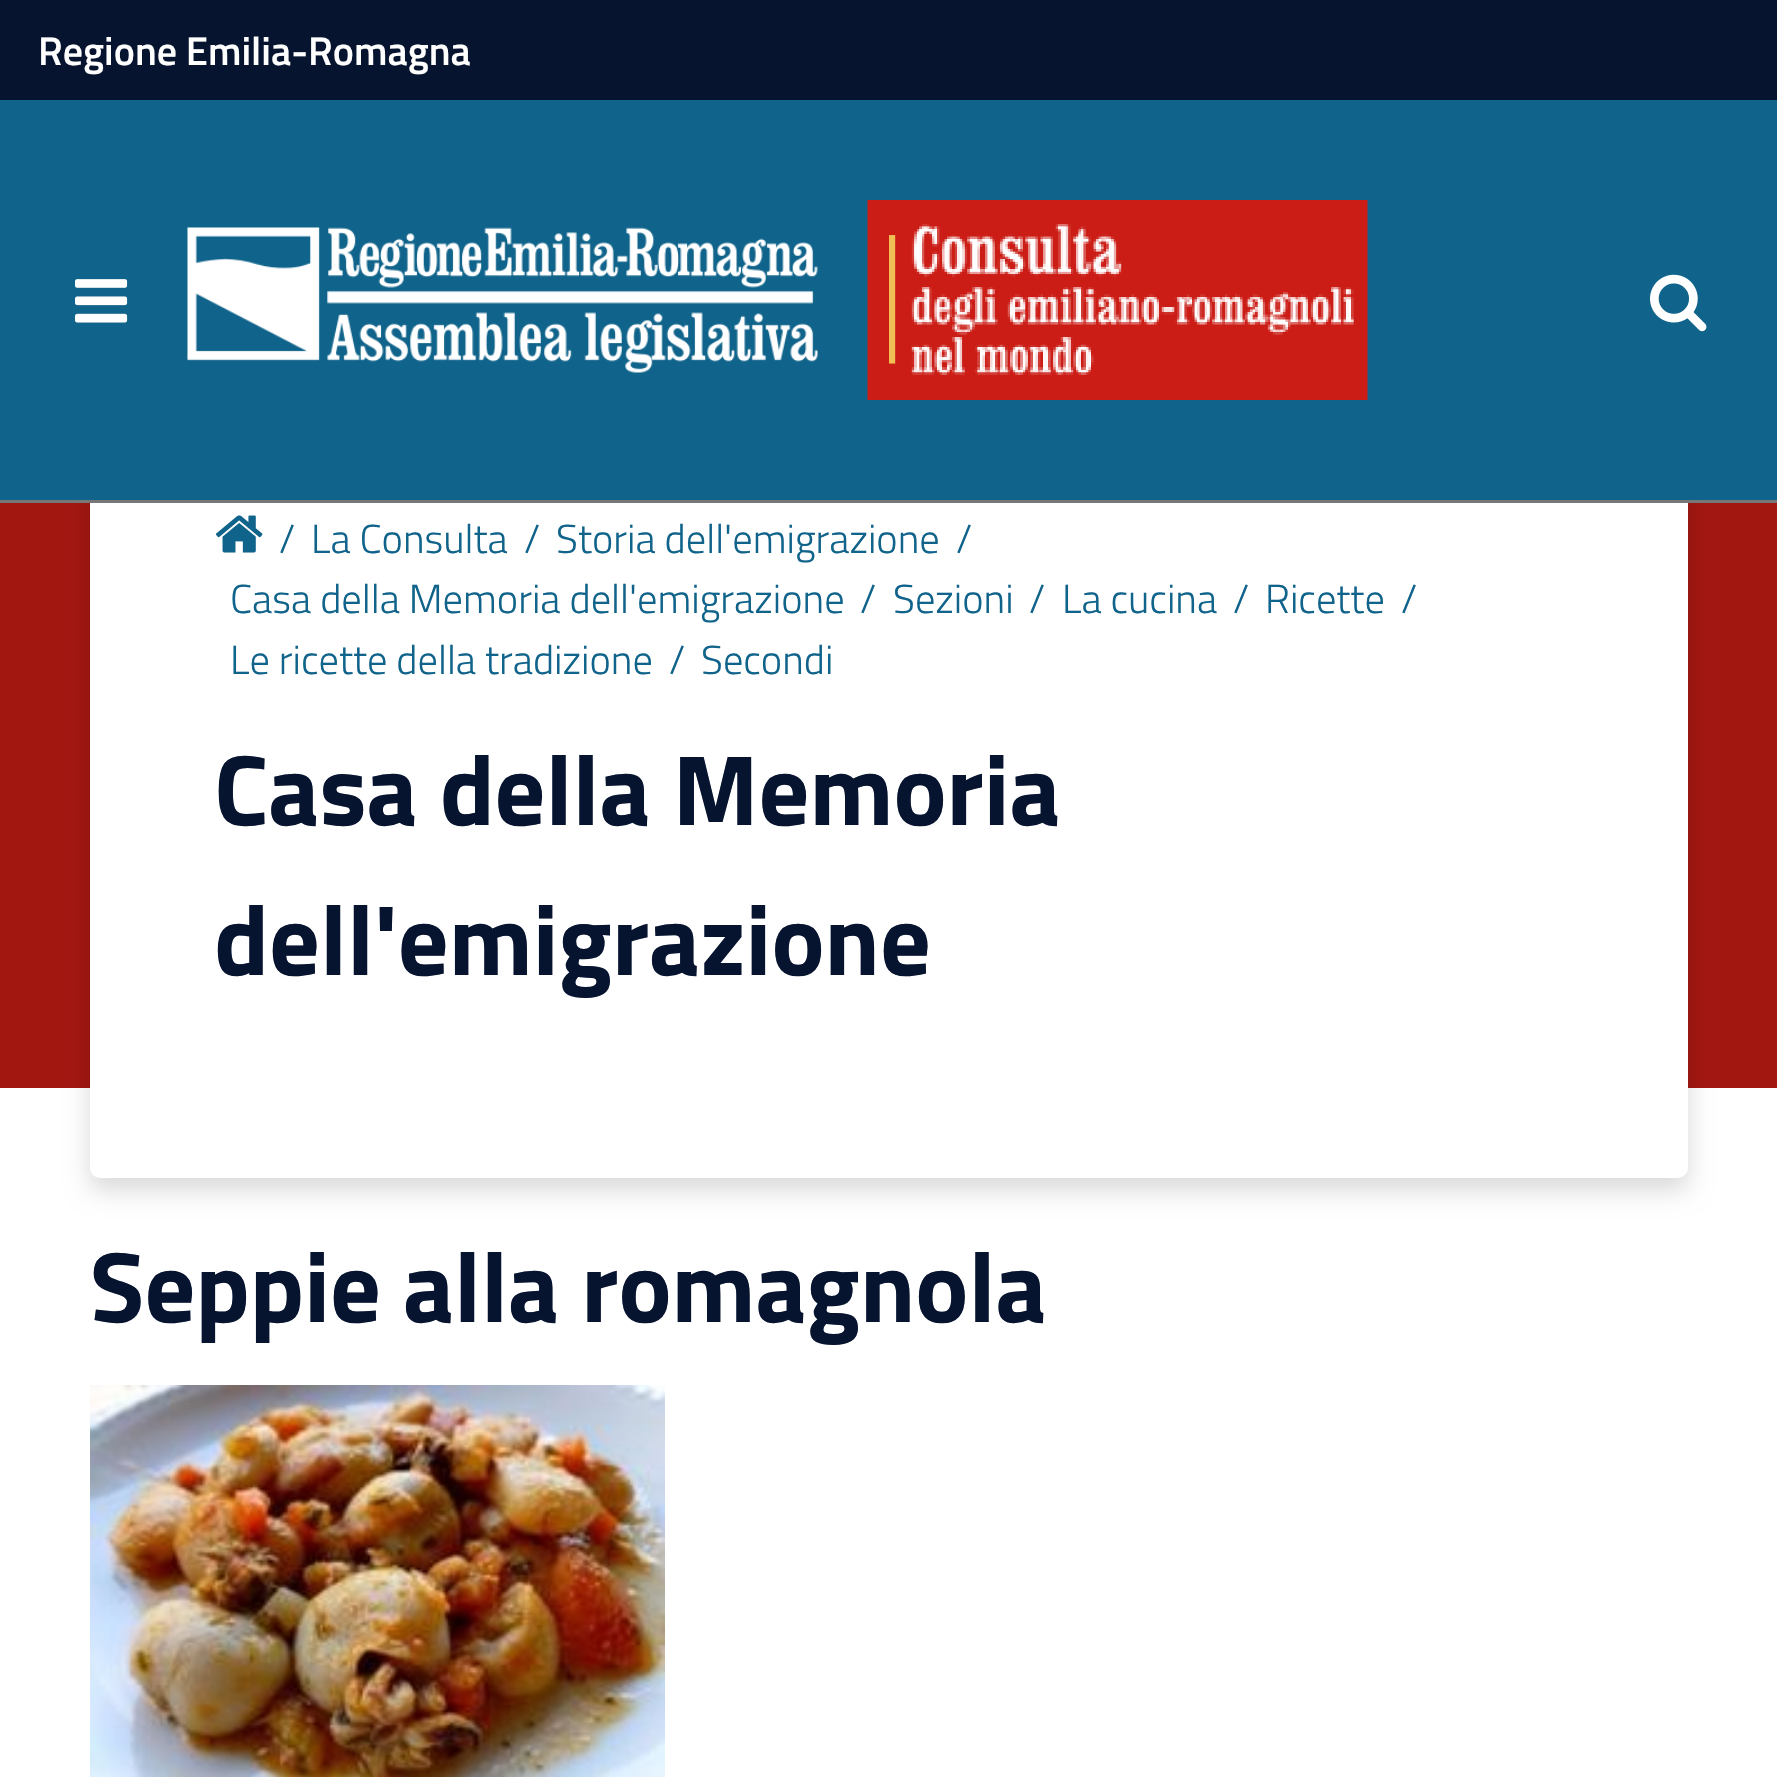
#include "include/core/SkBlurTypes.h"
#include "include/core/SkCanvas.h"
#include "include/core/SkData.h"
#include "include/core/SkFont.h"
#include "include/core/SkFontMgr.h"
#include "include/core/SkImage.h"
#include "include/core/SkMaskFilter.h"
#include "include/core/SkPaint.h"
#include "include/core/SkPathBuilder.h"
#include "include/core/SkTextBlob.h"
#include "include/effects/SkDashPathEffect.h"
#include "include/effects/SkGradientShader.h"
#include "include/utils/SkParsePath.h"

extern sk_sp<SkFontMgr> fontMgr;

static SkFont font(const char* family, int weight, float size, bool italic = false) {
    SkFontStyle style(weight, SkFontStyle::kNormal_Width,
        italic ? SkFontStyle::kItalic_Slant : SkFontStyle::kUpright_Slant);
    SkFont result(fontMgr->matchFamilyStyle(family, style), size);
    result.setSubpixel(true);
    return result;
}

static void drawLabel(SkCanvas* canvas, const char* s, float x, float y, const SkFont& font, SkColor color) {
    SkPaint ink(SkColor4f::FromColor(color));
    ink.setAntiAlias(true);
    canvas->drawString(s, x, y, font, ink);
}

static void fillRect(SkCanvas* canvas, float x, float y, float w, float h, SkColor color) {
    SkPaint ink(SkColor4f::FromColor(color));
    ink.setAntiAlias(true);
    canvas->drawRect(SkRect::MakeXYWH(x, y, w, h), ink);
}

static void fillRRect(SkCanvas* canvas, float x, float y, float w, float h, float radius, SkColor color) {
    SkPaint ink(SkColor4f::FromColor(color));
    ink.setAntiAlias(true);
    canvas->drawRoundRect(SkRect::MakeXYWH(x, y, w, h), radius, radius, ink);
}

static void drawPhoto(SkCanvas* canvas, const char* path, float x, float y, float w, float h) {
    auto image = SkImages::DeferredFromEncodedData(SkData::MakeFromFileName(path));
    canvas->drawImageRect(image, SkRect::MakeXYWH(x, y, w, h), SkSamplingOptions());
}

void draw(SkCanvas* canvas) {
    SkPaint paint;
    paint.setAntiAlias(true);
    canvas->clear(0xFFFFFFFF);
    fillRect(canvas, 0, 0, 1777, 100, 0xFF07142F);
    SkFont font1 = font("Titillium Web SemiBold", 600, 40);
    drawLabel(canvas, "Regione Emilia-Romagna", 38, 65, font1, 0xFFFFFFFF);
    fillRect(canvas, 0, 503, 1777, 585, 0xFFA31711);
    paint.setColor(0x26000000);
    paint.setMaskFilter(SkMaskFilter::MakeBlur(kNormal_SkBlurStyle, 12.5f));
    canvas->drawRoundRect(SkRect::MakeXYWH(90, 420, 1598, 770), 10, 10, paint);
    paint.setMaskFilter(nullptr);
    fillRRect(canvas, 90, 408, 1598, 770, 10, 0xFFFFFFFF);
    fillRect(canvas, 0, 100, 1777, 400, 0xFF10638A);
    fillRect(canvas, 0, 500, 1777, 3, 0xFF777777);
    drawPhoto(canvas, "assets/img1.png", 75, 279, 53, 44);
    drawPhoto(canvas, "assets/img2.png", 187, 227, 631, 146);
    drawPhoto(canvas, "assets/img3.png", 867, 200, 501, 200);
    drawPhoto(canvas, "assets/img4.png", 1650, 274, 57, 58);
    drawPhoto(canvas, "assets/img5.png", 215, 515, 48, 38);
    SkFont font2 = font("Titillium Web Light", 300, 40.5f);
    drawLabel(canvas, "/", 279, 553, font2, 0xFF10638A);
    drawLabel(canvas, "La Consulta", 311, 553, font2, 0xFF10638A);
    drawLabel(canvas, "/", 524, 553, font2, 0xFF10638A);
    drawLabel(canvas, "Storia dell'emigrazione", 556, 553, font2, 0xFF10638A);
    drawLabel(canvas, "/", 956, 553, font2, 0xFF10638A);
    drawLabel(canvas, "Casa della Memoria dell'emigrazione", 230, 613, font2, 0xFF10638A);
    drawLabel(canvas, "/", 860, 613, font2, 0xFF10638A);
    drawLabel(canvas, "Sezioni", 893, 613, font2, 0xFF10638A);
    drawLabel(canvas, "/", 1029, 613, font2, 0xFF10638A);
    drawLabel(canvas, "La cucina", 1062, 613, font2, 0xFF10638A);
    drawLabel(canvas, "/", 1233, 613, font2, 0xFF10638A);
    drawLabel(canvas, "Ricette", 1265, 613, font2, 0xFF10638A);
    drawLabel(canvas, "/", 1401, 613, font2, 0xFF10638A);
    drawLabel(canvas, "Le ricette della tradizione", 230, 674, font2, 0xFF10638A);
    drawLabel(canvas, "/", 669, 674, font2, 0xFF10638A);
    drawLabel(canvas, "Secondi", 701, 674, font2, 0xFF10638A);
    SkFont font3 = font("Titillium Web", 700, 100);
    drawLabel(canvas, "Casa della Memoria", 214, 825, font3, 0xFF07142F);
    drawLabel(canvas, "dell'emigrazione", 214, 975, font3, 0xFF07142F);
    drawLabel(canvas, "Seppie alla romagnola", 90, 1322, font3, 0xFF07142F);
    drawPhoto(canvas, "assets/img6.png", 90, 1385, 575, 392);
}
